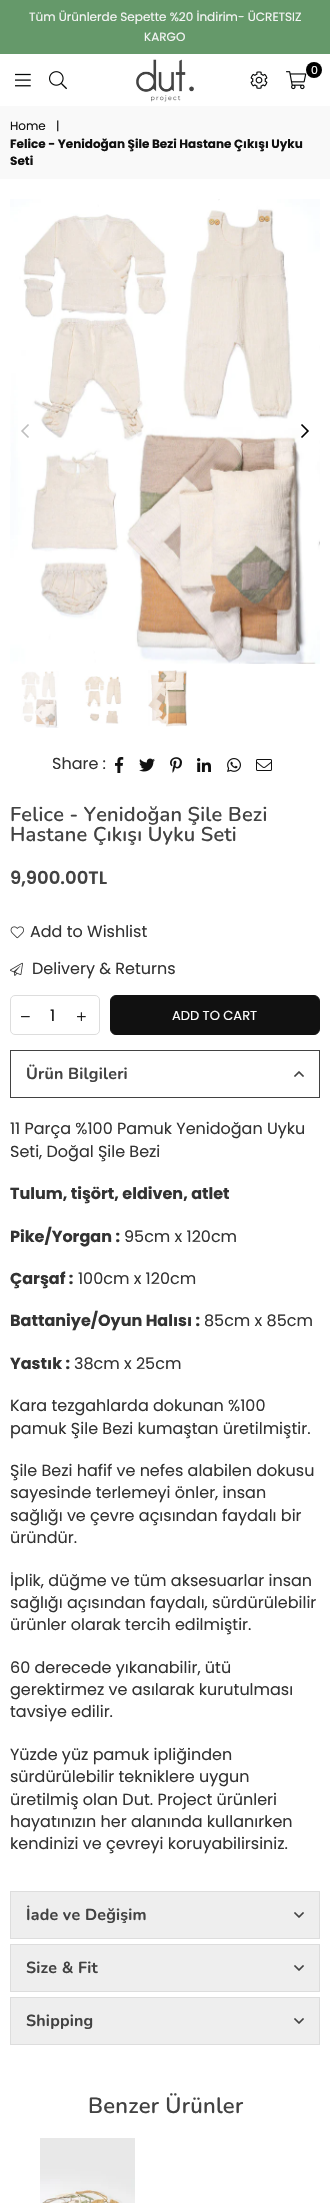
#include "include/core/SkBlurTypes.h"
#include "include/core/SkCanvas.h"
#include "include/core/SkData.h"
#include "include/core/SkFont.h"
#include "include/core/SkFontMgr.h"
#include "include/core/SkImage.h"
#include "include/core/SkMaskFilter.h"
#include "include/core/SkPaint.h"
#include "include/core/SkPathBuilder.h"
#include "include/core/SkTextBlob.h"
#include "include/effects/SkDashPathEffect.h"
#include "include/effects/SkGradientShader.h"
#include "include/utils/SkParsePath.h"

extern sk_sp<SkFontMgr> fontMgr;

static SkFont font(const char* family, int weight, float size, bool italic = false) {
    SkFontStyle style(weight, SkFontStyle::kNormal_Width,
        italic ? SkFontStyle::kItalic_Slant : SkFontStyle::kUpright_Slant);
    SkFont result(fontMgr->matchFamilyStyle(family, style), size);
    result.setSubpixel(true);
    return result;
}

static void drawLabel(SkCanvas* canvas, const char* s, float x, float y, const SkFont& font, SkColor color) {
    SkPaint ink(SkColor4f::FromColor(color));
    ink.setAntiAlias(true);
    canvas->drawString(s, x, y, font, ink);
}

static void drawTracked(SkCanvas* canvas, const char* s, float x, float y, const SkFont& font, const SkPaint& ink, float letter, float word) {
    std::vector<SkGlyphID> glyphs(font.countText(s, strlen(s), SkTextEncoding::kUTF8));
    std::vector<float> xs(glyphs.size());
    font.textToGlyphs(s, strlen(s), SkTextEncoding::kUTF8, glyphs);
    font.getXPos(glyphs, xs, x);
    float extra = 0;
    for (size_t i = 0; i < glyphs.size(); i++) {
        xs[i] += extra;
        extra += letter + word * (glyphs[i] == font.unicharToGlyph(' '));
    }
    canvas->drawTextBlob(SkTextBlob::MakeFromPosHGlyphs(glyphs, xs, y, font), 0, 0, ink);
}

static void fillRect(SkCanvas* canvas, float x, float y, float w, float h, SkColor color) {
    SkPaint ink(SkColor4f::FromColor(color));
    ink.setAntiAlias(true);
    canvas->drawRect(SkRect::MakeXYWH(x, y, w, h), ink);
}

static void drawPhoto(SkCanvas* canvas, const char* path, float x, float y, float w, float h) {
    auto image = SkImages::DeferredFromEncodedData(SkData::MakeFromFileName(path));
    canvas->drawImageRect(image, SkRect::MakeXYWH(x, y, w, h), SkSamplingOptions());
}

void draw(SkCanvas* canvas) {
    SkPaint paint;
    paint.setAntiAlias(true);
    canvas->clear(0xFFFFFFFF);
    fillRect(canvas, 0, 0, 330, 54, 0xFF65996A);
    SkFont font1 = font("Poppins", 400, 12);
    drawLabel(canvas, "Tüm Ürünlerde Sepette %20 İndirim- ÜCRETSIZ", 29, 21, font1, 0xFFF5F5F5);
    drawLabel(canvas, "KARGO", 144, 41, font1, 0xFFF5F5F5);
    drawPhoto(canvas, "assets/img1.png", 136, 59, 58, 43);
    drawPhoto(canvas, "assets/img2.png", 286, 71, 21, 19);
    paint.setColor(0xFF000000);
    canvas->drawCircle(314, 70, 8, paint);
    SkFont font2 = font("Poppins", 400, 11);
    drawLabel(canvas, "0", 311, 74, font2, 0xFFFFFFFF);
    drawPhoto(canvas, "assets/img3.png", 250, 71, 18, 18);
    drawPhoto(canvas, "assets/img4.png", 15, 73, 16, 14);
    drawPhoto(canvas, "assets/img5.png", 49, 71, 18, 19);
    fillRect(canvas, 0, 106, 330, 73, 0xFFF9F9F9);
    drawLabel(canvas, "Home", 10, 130, font1, 0xFF111111);
    drawLabel(canvas, "|", 56, 130, font1, 0xFF111111);
    SkFont font3 = font("Poppins", 700, 12);
    drawLabel(canvas, "Felice - Yenidoğan Şile Bezi Hastane Çıkışı Uyku", 10, 148, font3, 0xFF111111);
    drawLabel(canvas, "Seti", 10, 165, font3, 0xFF111111);
    drawPhoto(canvas, "assets/img6.png", 10, 199, 310, 465);
    drawPhoto(canvas, "assets/img7.png", 21, 424, 8, 14);
    drawPhoto(canvas, "assets/img8.png", 301, 424, 8, 14);
    drawPhoto(canvas, "assets/img9.png", 21, 671, 38, 57);
    drawPhoto(canvas, "assets/img10.png", 84, 676, 38, 48);
    drawPhoto(canvas, "assets/img11.png", 148, 670, 39, 57);
    SkFont font4 = font("Poppins", 400, 16);
    drawLabel(canvas, "Share :", 52, 769, font4, 0xFF333333);
    drawPhoto(canvas, "assets/img12.png", 115, 757, 9, 16);
    drawPhoto(canvas, "assets/img13.png", 139, 758, 16, 14);
    drawPhoto(canvas, "assets/img14.png", 170, 757, 12, 16);
    drawPhoto(canvas, "assets/img15.png", 197, 758, 14, 14);
    drawPhoto(canvas, "assets/img16.png", 227, 758, 14, 14);
    drawPhoto(canvas, "assets/img17.png", 256, 759, 16, 12);
    SkFont font5 = font("Nunito", 600, 20);
    paint.setColor(0xFF424242);
    drawTracked(canvas, "Felice - Yenidoğan Şile Bezi", 10, 821, font5, paint, 0.2f, 0);
    drawTracked(canvas, "Hastane Çıkışı Uyku Seti", 10, 841, font5, paint, 0.2f, 0);
    SkFont font6 = font("Poppins", 600, 18);
    drawLabel(canvas, "9,900.00TL", 10, 884, font6, 0xFF424242);
    drawPhoto(canvas, "assets/img18.png", 10, 926, 14, 13);
    drawLabel(canvas, "Add to Wishlist", 30, 937, font4, 0xFF333333);
    drawPhoto(canvas, "assets/img19.png", 10, 962, 13, 14);
    drawLabel(canvas, "Delivery & Returns", 32, 974, font4, 0xFF333333);
    paint.setStroke(true);
    paint.setStrokeWidth(1);
    paint.setColor(0xFFDDDDDD);
    canvas->drawRoundRect(SkRect::MakeXYWH(10.5f, 995.5f, 89, 39), 4.5f, 4.5f, paint);
    drawPhoto(canvas, "assets/img20.png", 21, 1016, 9, 2);
    drawLabel(canvas, "1", 50, 1021, font4, 0xFF111111);
    drawPhoto(canvas, "assets/img21.png", 77, 1012, 9, 9);
    paint.setStroke(false);
    paint.setColor(0xFF111111);
    canvas->drawRoundRect(SkRect::MakeXYWH(110.5f, 995.5f, 209, 39), 5.5f, 5.5f, paint);
    paint.setStroke(true);
    canvas->drawRoundRect(SkRect::MakeXYWH(110.5f, 995.5f, 209, 39), 5.5f, 5.5f, paint);
    SkFont font7 = font("Poppins", 400, 13);
    drawLabel(canvas, "ADD TO CART", 172, 1020, font7, 0xFFFFFFFF);
    paint.setColor(0xFF424242);
    canvas->drawRect(SkRect::MakeXYWH(10.5f, 1050.5f, 309, 47), paint);
    SkFont font8 = font("Nunito", 700, 16);
    paint.setStroke(false);
    drawTracked(canvas, "Ürün Bilgileri", 26, 1079, font8, paint, 0.2f, 0);
    drawPhoto(canvas, "assets/img22.png", 294, 1071, 10, 6);
    drawLabel(canvas, "11 Parça %100 Pamuk Yenidoğan Uyku", 10, 1134, font4, 0xFF333333);
    drawLabel(canvas, "Seti, Doğal Şile Bezi", 10, 1157, font4, 0xFF333333);
    SkFont font9 = font("Poppins", 700, 16);
    drawLabel(canvas, "Tulum, tişört, eldiven, atlet", 10, 1199, font9, 0xFF333333);
    drawLabel(canvas, "Pike/Yorgan :", 10, 1242, font9, 0xFF333333);
    drawLabel(canvas, "95cm x 120cm", 124, 1242, font4, 0xFF333333);
    drawLabel(canvas, "Çarşaf :", 10, 1284, font9, 0xFF333333);
    drawLabel(canvas, "100cm x 120cm", 78, 1284, font4, 0xFF333333);
    drawLabel(canvas, "Battaniye/Oyun Halısı :", 10, 1326, font9, 0xFF333333);
    drawLabel(canvas, "85cm x 85cm", 204, 1326, font4, 0xFF333333);
    drawLabel(canvas, "Yastık :", 10, 1369, font9, 0xFF333333);
    drawLabel(canvas, "38cm x 25cm", 74, 1369, font4, 0xFF333333);
    drawLabel(canvas, "Kara tezgahlarda dokunan %100", 10, 1411, font4, 0xFF333333);
    drawLabel(canvas, "pamuk Şile Bezi kumaştan üretilmiştir.", 10, 1434, font4, 0xFF333333);
    drawLabel(canvas, "Şile Bezi hafif ve nefes alabilen dokusu", 10, 1476, font4, 0xFF333333);
    drawLabel(canvas, "sayesinde terlemeyi önler, insan", 10, 1498, font4, 0xFF333333);
    drawLabel(canvas, "sağlığı ve çevre açısından faydalı bir", 10, 1521, font4, 0xFF333333);
    drawLabel(canvas, "üründür.", 10, 1543, font4, 0xFF333333);
    drawLabel(canvas, "İplik, düğme ve tüm aksesuarlar insan", 10, 1586, font4, 0xFF333333);
    drawLabel(canvas, "sağlığı açısından faydalı, sürdürülebilir", 10, 1608, font4, 0xFF333333);
    drawLabel(canvas, "ürünler olarak tercih edilmiştir.", 10, 1630, font4, 0xFF333333);
    drawLabel(canvas, "60 derecede yıkanabilir, ütü", 10, 1673, font4, 0xFF333333);
    drawLabel(canvas, "gerektirmez ve asılarak kurutulması", 10, 1695, font4, 0xFF333333);
    drawLabel(canvas, "tavsiye edilir.", 10, 1717, font4, 0xFF333333);
    drawLabel(canvas, "Yüzde yüz pamuk ipliğinden", 10, 1760, font4, 0xFF333333);
    drawLabel(canvas, "sürdürülebilir tekniklere uygun", 10, 1782, font4, 0xFF333333);
    drawLabel(canvas, "üretilmiş olan Dut. Project ürünleri", 10, 1805, font4, 0xFF333333);
    drawLabel(canvas, "hayatınızın her alanında kullanırken", 10, 1827, font4, 0xFF333333);
    drawLabel(canvas, "kendinizi ve çevreyi koruyabilirsiniz.", 10, 1849, font4, 0xFF333333);
    paint.setColor(0xFFEEEEEE);
    canvas->drawRect(SkRect::MakeXYWH(10.5f, 1891.5f, 309, 47), paint);
    paint.setStroke(true);
    paint.setColor(0xFFDDDDDD);
    canvas->drawRect(SkRect::MakeXYWH(10.5f, 1891.5f, 309, 47), paint);
    paint.setStroke(false);
    paint.setColor(0xFF424242);
    drawTracked(canvas, "İade ve Değişim", 26, 1920, font8, paint, 0.2f, 0);
    drawPhoto(canvas, "assets/img23.png", 294, 1912, 10, 6);
    paint.setColor(0xFFEEEEEE);
    canvas->drawRect(SkRect::MakeXYWH(10.5f, 1944.5f, 309, 47), paint);
    paint.setStroke(true);
    paint.setColor(0xFFDDDDDD);
    canvas->drawRect(SkRect::MakeXYWH(10.5f, 1944.5f, 309, 47), paint);
    paint.setStroke(false);
    paint.setColor(0xFF424242);
    drawTracked(canvas, "Size & Fit", 26, 1973, font8, paint, 0.2f, 0);
    drawPhoto(canvas, "assets/img23.png", 294, 1965, 10, 6);
    paint.setColor(0xFFEEEEEE);
    canvas->drawRect(SkRect::MakeXYWH(10.5f, 1997.5f, 309, 47), paint);
    paint.setStroke(true);
    paint.setColor(0xFFDDDDDD);
    canvas->drawRect(SkRect::MakeXYWH(10.5f, 1997.5f, 309, 47), paint);
    paint.setStroke(false);
    paint.setColor(0xFF424242);
    drawTracked(canvas, "Shipping", 26, 2026, font8, paint, 0.2f, 0);
    drawPhoto(canvas, "assets/img23.png", 294, 2018, 10, 6);
    SkFont font10 = font("Nunito", 600, 22);
    drawTracked(canvas, "Benzer Ürünler", 88, 2113, font10, paint, 0.25f, 0);
    drawPhoto(canvas, "assets/img24.png", 40, 2138, 95, 65);
}
